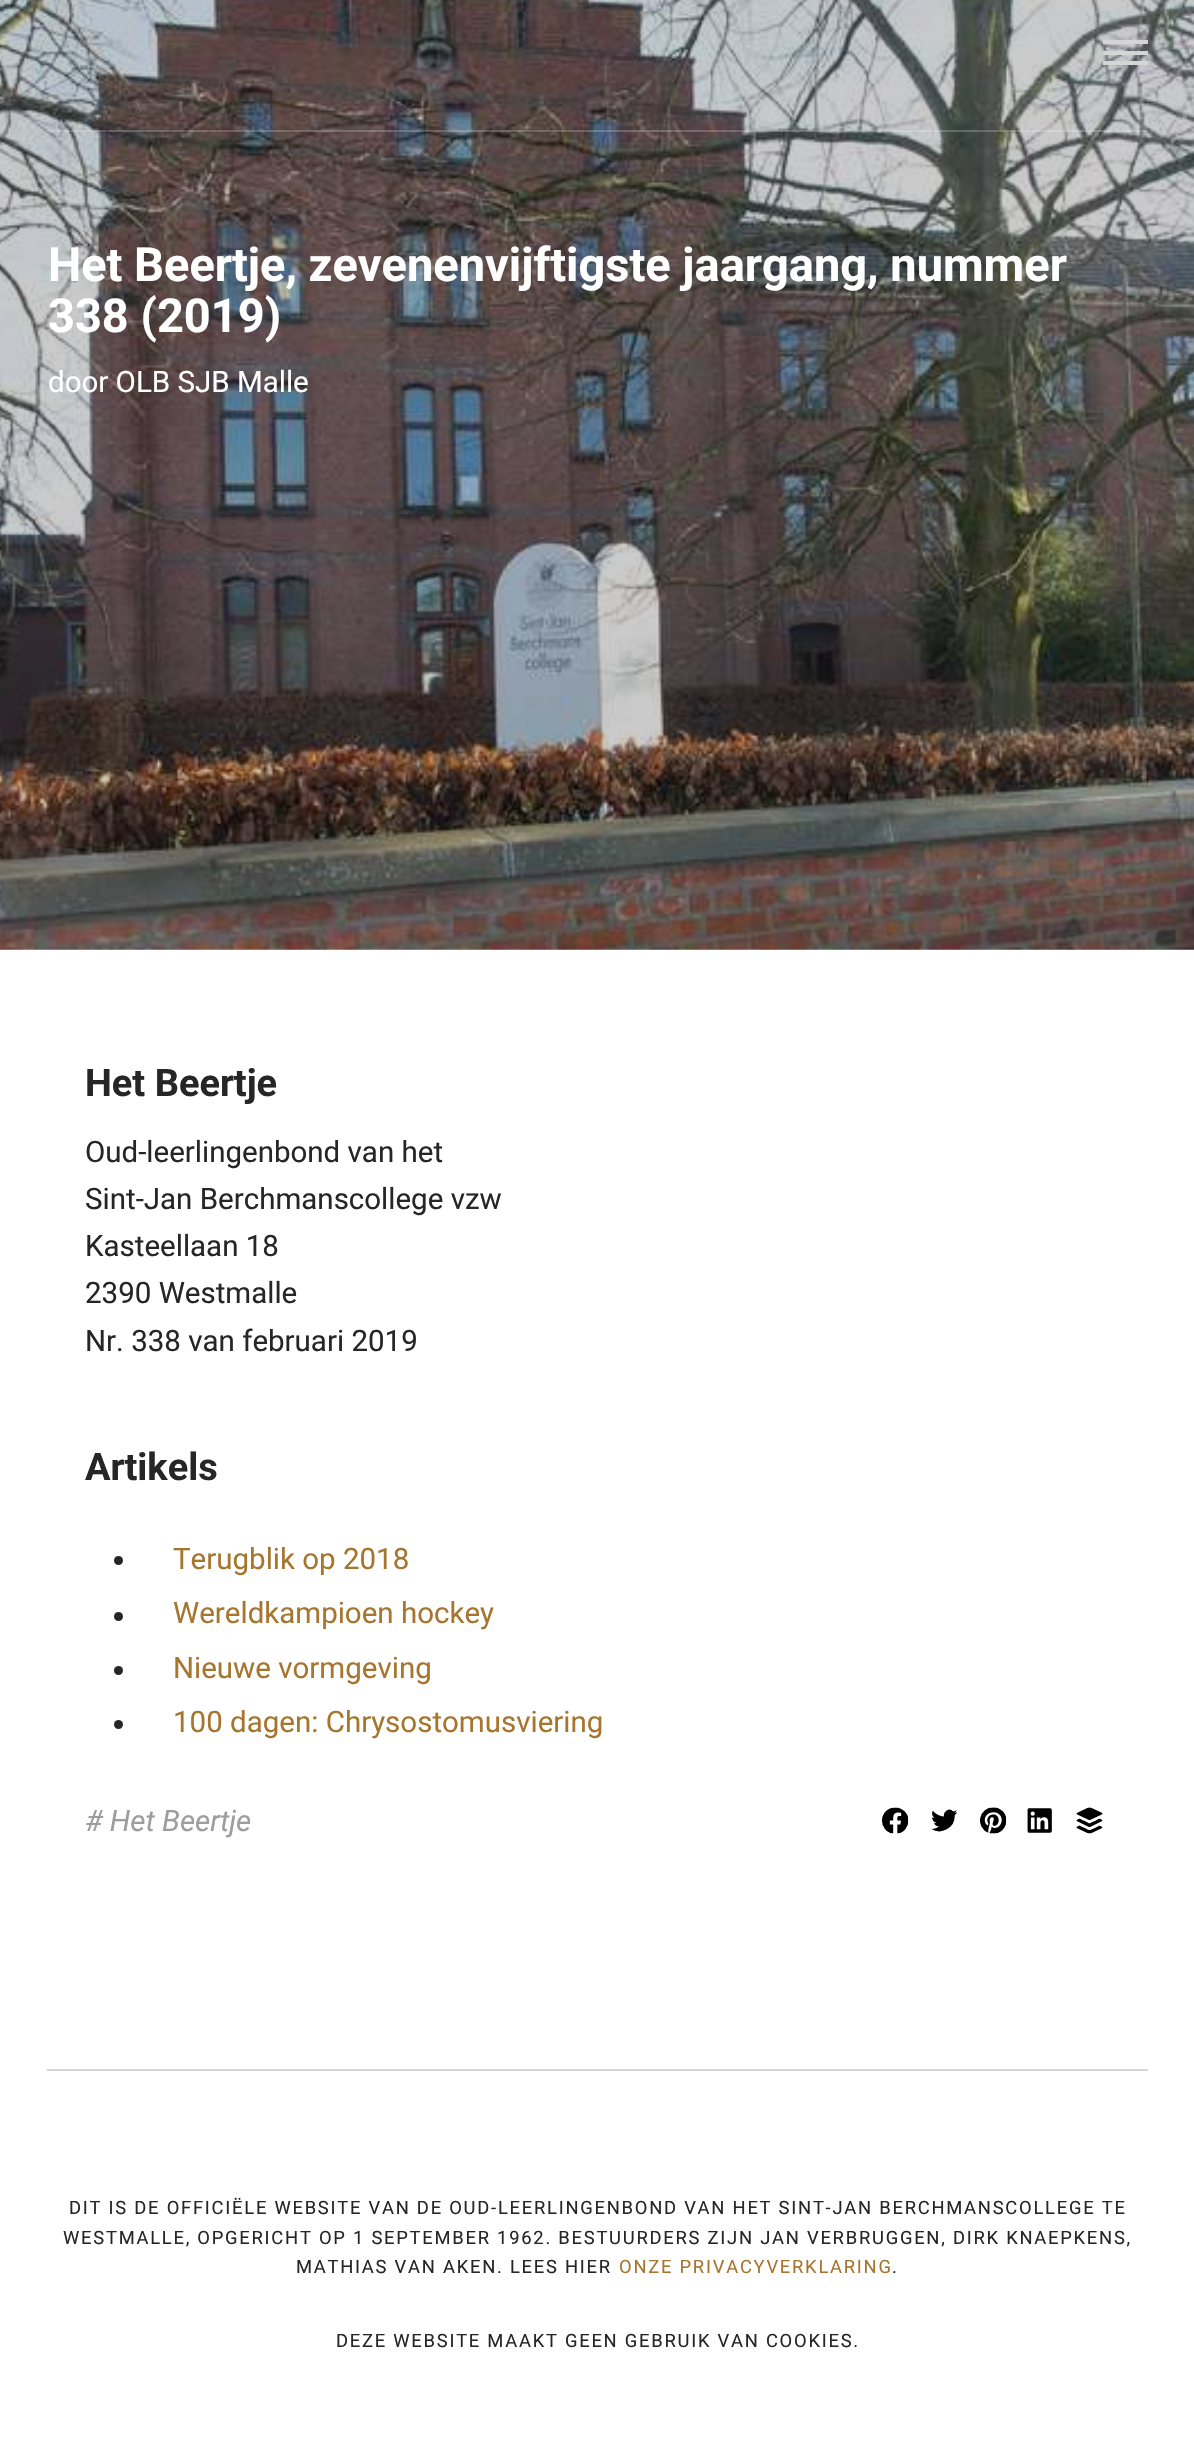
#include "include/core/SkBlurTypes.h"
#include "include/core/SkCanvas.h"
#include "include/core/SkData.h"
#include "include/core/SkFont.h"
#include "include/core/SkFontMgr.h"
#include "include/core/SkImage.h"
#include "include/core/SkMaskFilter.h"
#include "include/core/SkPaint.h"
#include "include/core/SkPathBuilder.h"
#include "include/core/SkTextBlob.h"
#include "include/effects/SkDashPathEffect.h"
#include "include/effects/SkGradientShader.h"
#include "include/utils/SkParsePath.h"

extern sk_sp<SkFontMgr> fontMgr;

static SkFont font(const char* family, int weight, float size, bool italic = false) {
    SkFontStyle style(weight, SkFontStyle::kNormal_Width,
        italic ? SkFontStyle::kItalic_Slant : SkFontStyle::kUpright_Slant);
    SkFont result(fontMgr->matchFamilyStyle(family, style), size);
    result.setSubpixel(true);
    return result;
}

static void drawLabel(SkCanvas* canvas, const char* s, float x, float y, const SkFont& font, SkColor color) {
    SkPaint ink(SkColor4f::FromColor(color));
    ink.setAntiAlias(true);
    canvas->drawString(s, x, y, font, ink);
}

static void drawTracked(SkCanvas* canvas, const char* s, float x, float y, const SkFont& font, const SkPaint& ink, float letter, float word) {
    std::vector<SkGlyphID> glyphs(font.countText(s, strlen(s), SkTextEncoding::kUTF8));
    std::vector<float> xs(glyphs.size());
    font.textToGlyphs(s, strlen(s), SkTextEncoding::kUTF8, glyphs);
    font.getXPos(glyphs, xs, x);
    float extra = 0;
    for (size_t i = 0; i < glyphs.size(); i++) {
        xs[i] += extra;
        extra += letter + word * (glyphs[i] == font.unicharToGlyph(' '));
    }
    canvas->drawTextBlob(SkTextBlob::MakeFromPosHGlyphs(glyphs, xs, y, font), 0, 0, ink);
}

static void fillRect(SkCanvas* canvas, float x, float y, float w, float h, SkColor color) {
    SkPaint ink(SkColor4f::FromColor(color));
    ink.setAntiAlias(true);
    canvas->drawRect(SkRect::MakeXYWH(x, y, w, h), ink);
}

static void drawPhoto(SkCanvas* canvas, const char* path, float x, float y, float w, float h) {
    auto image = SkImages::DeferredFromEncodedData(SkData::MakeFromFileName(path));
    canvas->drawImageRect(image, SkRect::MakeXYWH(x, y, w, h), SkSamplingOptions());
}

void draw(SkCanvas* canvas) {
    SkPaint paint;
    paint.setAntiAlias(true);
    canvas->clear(0xFFFFFFFF);
    drawPhoto(canvas, "assets/img1.png", 0, 0, 1194, 950);
    fillRect(canvas, 47, 130, 1101, 2, 0x33FFFFFF);
    fillRect(canvas, 1103, 51, 45, 4, 0xFFD5D5D5);
    fillRect(canvas, 1103, 40, 45, 4, 0xFFD5D5D5);
    fillRect(canvas, 1103, 61, 45, 4, 0xFFD5D5D5);
    SkFont font1 = font("Roboto", 700, 46.95f);
    drawLabel(canvas, "Het Beertje, zevenenvijftigste jaargang, nummer", 48, 281, font1, 0xFFFFFFFF);
    drawLabel(canvas, "338 (2019)", 48, 332, font1, 0xFFFFFFFF);
    SkFont font2 = font("Roboto", 400, 29.5f);
    drawLabel(canvas, "door OLB SJB Malle", 48, 392, font2, 0xFFFFFFFF);
    SkFont font3 = font("Roboto", 700, 38);
    drawLabel(canvas, "Het Beertje", 85, 1096, font3, 0xFF262626);
    drawLabel(canvas, "Oud-leerlingenbond van het", 85, 1162, font2, 0xFF262626);
    drawLabel(canvas, "Sint-Jan Berchmanscollege vzw", 85, 1209, font2, 0xFF262626);
    drawLabel(canvas, "Kasteellaan 18", 85, 1256, font2, 0xFF262626);
    drawLabel(canvas, "2390 Westmalle", 85, 1303, font2, 0xFF262626);
    drawLabel(canvas, "Nr. 338 van februari 2019", 85, 1351, font2, 0xFF262626);
    drawLabel(canvas, "Artikels", 85, 1480, font3, 0xFF262626);
    paint.setColor(0xFF262626);
    canvas->drawCircle(118.5f, 1560.5f, 4.5f, paint);
    drawLabel(canvas, "Terugblik op 2018", 173, 1569, font2, 0xFFA6752E);
    canvas->drawCircle(118.5f, 1616.5f, 4.5f, paint);
    drawLabel(canvas, "Wereldkampioen hockey", 173, 1623, font2, 0xFFA6752E);
    canvas->drawCircle(118.5f, 1670.5f, 4.5f, paint);
    drawLabel(canvas, "Nieuwe vormgeving", 173, 1678, font2, 0xFFA6752E);
    canvas->drawCircle(118.5f, 1724.5f, 4.5f, paint);
    drawLabel(canvas, "100 dagen: Chrysostomusviering", 173, 1732, font2, 0xFFA6752E);
    SkFont font4 = font("Roboto", 400, 29.5f, true);
    drawLabel(canvas, "# Het Beertje", 85, 1831, font4, 0xFF9D9D9D);
    drawPhoto(canvas, "assets/img2.png", 882, 1807, 27, 27);
    drawPhoto(canvas, "assets/img3.png", 931, 1809, 26, 23);
    drawPhoto(canvas, "assets/img4.png", 980, 1807, 27, 27);
    drawPhoto(canvas, "assets/img5.png", 1027, 1808, 25, 25);
    drawPhoto(canvas, "assets/img6.png", 1076, 1807, 27, 27);
    fillRect(canvas, 47, 2069, 1101, 2, 0xFFD5D5D5);
    SkFont font5 = font("Roboto", 400, 18.38f);
    drawTracked(canvas, "DIT IS DE OFFICIËLE WEBSITE VAN DE OUD-LEERLINGENBOND VAN HET SINT-JAN BERCHMANSCOLLEGE TE", 69, 2214, font5, paint, 1.75f, 0);
    drawTracked(canvas, "WESTMALLE, OPGERICHT OP 1 SEPTEMBER 1962. BESTUURDERS ZIJN JAN VERBRUGGEN, DIRK KNAEPKENS,", 63, 2244, font5, paint, 1.75f, 0);
    drawTracked(canvas, "MATHIAS VAN AKEN. LEES HIER", 296, 2273, font5, paint, 1.75f, 0);
    paint.setColor(0xFFA6752E);
    drawTracked(canvas, "ONZE PRIVACYVERKLARING", 619, 2273, font5, paint, 1.75f, 0);
    paint.setColor(0xFF262626);
    drawTracked(canvas, ".", 892, 2273, font5, paint, 1.75f, 0);
    drawTracked(canvas, "DEZE WEBSITE MAAKT GEEN GEBRUIK VAN COOKIES.", 336, 2347, font5, paint, 1.75f, 0);
}
